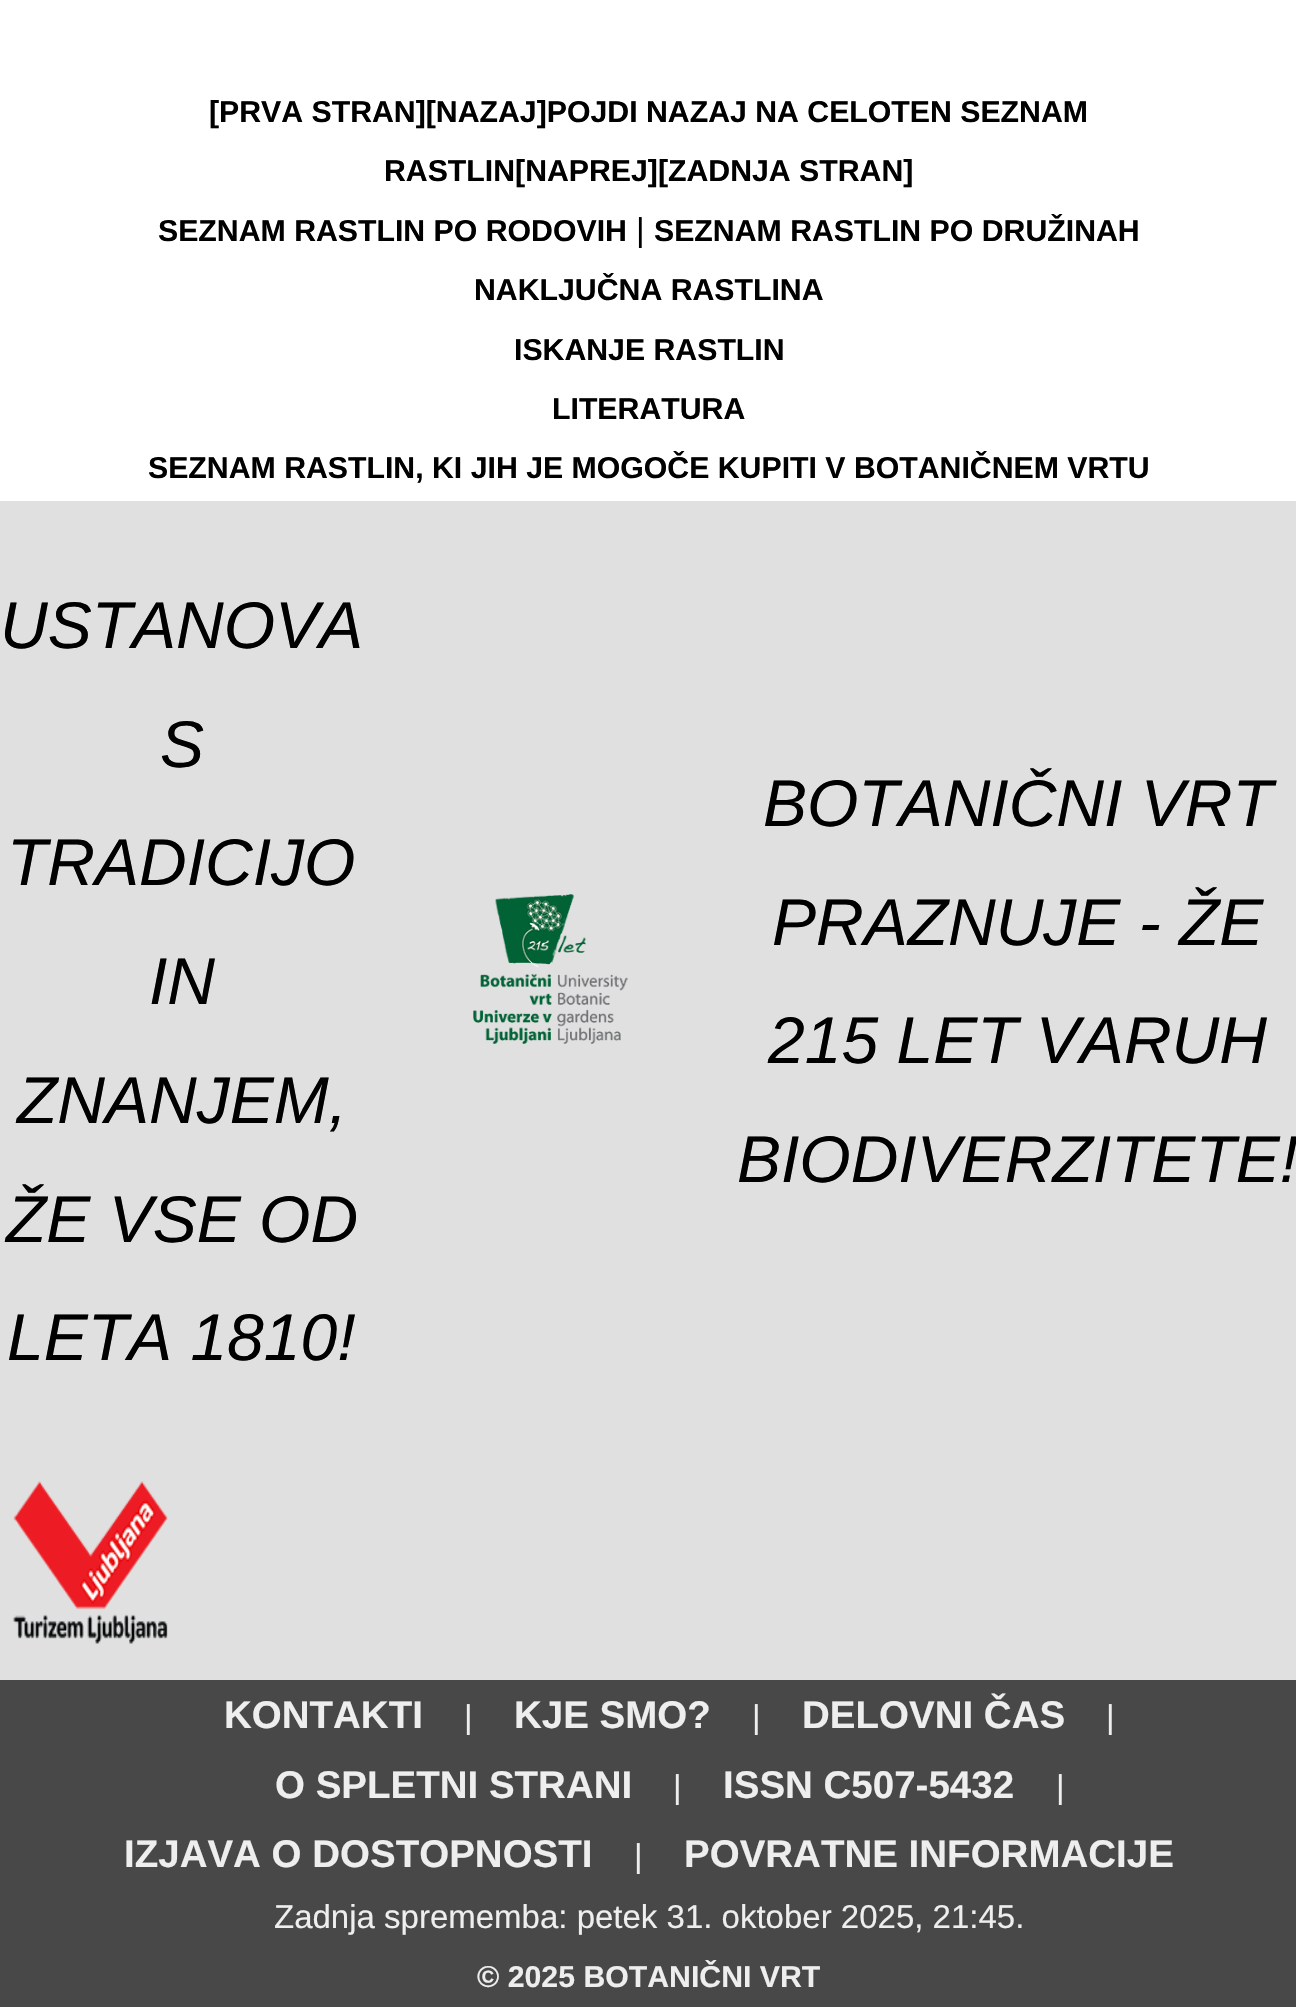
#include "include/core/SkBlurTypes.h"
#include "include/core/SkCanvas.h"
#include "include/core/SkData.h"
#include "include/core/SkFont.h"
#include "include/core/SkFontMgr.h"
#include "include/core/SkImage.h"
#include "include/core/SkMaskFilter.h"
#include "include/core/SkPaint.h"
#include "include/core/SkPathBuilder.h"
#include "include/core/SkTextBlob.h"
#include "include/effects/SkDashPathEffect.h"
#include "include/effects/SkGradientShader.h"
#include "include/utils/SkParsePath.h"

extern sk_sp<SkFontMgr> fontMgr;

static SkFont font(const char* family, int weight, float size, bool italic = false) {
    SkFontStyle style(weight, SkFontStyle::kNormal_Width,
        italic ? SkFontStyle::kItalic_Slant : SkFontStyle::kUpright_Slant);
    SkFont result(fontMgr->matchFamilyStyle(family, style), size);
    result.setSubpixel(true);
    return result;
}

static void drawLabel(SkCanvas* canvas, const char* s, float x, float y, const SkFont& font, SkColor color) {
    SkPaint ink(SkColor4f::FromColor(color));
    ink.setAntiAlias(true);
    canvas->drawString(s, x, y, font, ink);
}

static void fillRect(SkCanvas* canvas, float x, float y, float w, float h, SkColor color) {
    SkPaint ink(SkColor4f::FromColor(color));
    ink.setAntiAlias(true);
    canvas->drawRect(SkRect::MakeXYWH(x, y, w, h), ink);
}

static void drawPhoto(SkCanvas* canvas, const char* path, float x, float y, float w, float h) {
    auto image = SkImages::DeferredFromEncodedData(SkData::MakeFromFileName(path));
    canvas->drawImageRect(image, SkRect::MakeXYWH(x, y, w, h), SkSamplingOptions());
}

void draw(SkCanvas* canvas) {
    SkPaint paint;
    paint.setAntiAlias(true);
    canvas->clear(0xFFFFFFFF);
    SkFont font1 = font("Liberation Sans", 700, 30.25f);
    drawLabel(canvas, "[PRVA STRAN][NAZAJ]POJDI NAZAJ NA CELOTEN SEZNAM", 209, 122, font1, 0xFF000000);
    drawLabel(canvas, "RASTLIN[NAPREJ][ZADNJA STRAN]", 384, 181, font1, 0xFF000000);
    drawLabel(canvas, "SEZNAM RASTLIN PO RODOVIH", 158, 241, font1, 0xFF000000);
    SkFont font2 = font("Liberation Sans", 400, 33);
    drawLabel(canvas, "|", 636, 241, font2, 0xFF000000);
    drawLabel(canvas, "SEZNAM RASTLIN PO DRUŽINAH", 654, 241, font1, 0xFF000000);
    drawLabel(canvas, "NAKLJUČNA RASTLINA", 474, 300, font1, 0xFF000000);
    drawLabel(canvas, "ISKANJE RASTLIN", 514, 360, font1, 0xFF000000);
    drawLabel(canvas, "LITERATURA", 552, 419, font1, 0xFF000000);
    drawLabel(canvas, "SEZNAM RASTLIN, KI JIH JE MOGOČE KUPITI V BOTANIČNEM VRTU", 148, 478, font1, 0xFF000000);
    fillRect(canvas, 0, 501, 1296, 1179, 0xFFE0E0E0);
    SkFont font3 = font("Liberation Sans", 400, 66, true);
    drawLabel(canvas, "USTANOVA", 0, 648, font3, 0xFF000000);
    drawLabel(canvas, "S", 160, 767, font3, 0xFF000000);
    drawLabel(canvas, "TRADICIJO", 7, 885, font3, 0xFF000000);
    drawLabel(canvas, "IN", 149, 1004, font3, 0xFF000000);
    drawLabel(canvas, "ZNANJEM,", 17, 1123, font3, 0xFF000000);
    drawLabel(canvas, "ŽE VSE OD", 6, 1242, font3, 0xFF000000);
    drawLabel(canvas, "LETA 1810!", 7, 1360, font3, 0xFF000000);
    drawPhoto(canvas, "assets/img1.png", 473, 894, 155, 150);
    drawLabel(canvas, "BOTANIČNI VRT", 763, 826, font3, 0xFF000000);
    drawLabel(canvas, "PRAZNUJE - ŽE", 772, 945, font3, 0xFF000000);
    drawLabel(canvas, "215 LET VARUH", 768, 1063, font3, 0xFF000000);
    drawLabel(canvas, "BIODIVERZITETE!", 737, 1182, font3, 0xFF000000);
    drawPhoto(canvas, "assets/img2.png", 13, 1481, 155, 163);
    fillRect(canvas, 0, 1680, 1296, 327, 0xFF484848);
    SkFont font4 = font("Liberation Sans", 700, 38.5f);
    drawLabel(canvas, "KONTAKTI", 224, 1728, font4, 0xFFEEEEEE);
    drawLabel(canvas, "|", 464, 1728, font2, 0xFFEEEEEE);
    drawLabel(canvas, "KJE SMO?", 514, 1728, font4, 0xFFEEEEEE);
    drawLabel(canvas, "|", 752, 1728, font2, 0xFFEEEEEE);
    drawLabel(canvas, "DELOVNI ČAS", 802, 1728, font4, 0xFFEEEEEE);
    drawLabel(canvas, "|", 1106, 1728, font2, 0xFFEEEEEE);
    drawLabel(canvas, "O SPLETNI STRANI", 275, 1798, font4, 0xFFEEEEEE);
    drawLabel(canvas, "|", 673, 1798, font2, 0xFFEEEEEE);
    drawLabel(canvas, "ISSN C507-5432", 723, 1798, font4, 0xFFEEEEEE);
    drawLabel(canvas, "|", 1056, 1798, font2, 0xFFEEEEEE);
    drawLabel(canvas, "IZJAVA O DOSTOPNOSTI", 124, 1867, font4, 0xFFEEEEEE);
    drawLabel(canvas, "|", 634, 1867, font2, 0xFFEEEEEE);
    drawLabel(canvas, "POVRATNE INFORMACIJE", 684, 1867, font4, 0xFFEEEEEE);
    drawLabel(canvas, "Zadnja sprememba: petek 31. oktober 2025, 21:45.", 274, 1928, font2, 0xFFEEEEEE);
    drawLabel(canvas, "© 2025 BOTANIČNI VRT", 477, 1987, font1, 0xFFEEEEEE);
}
